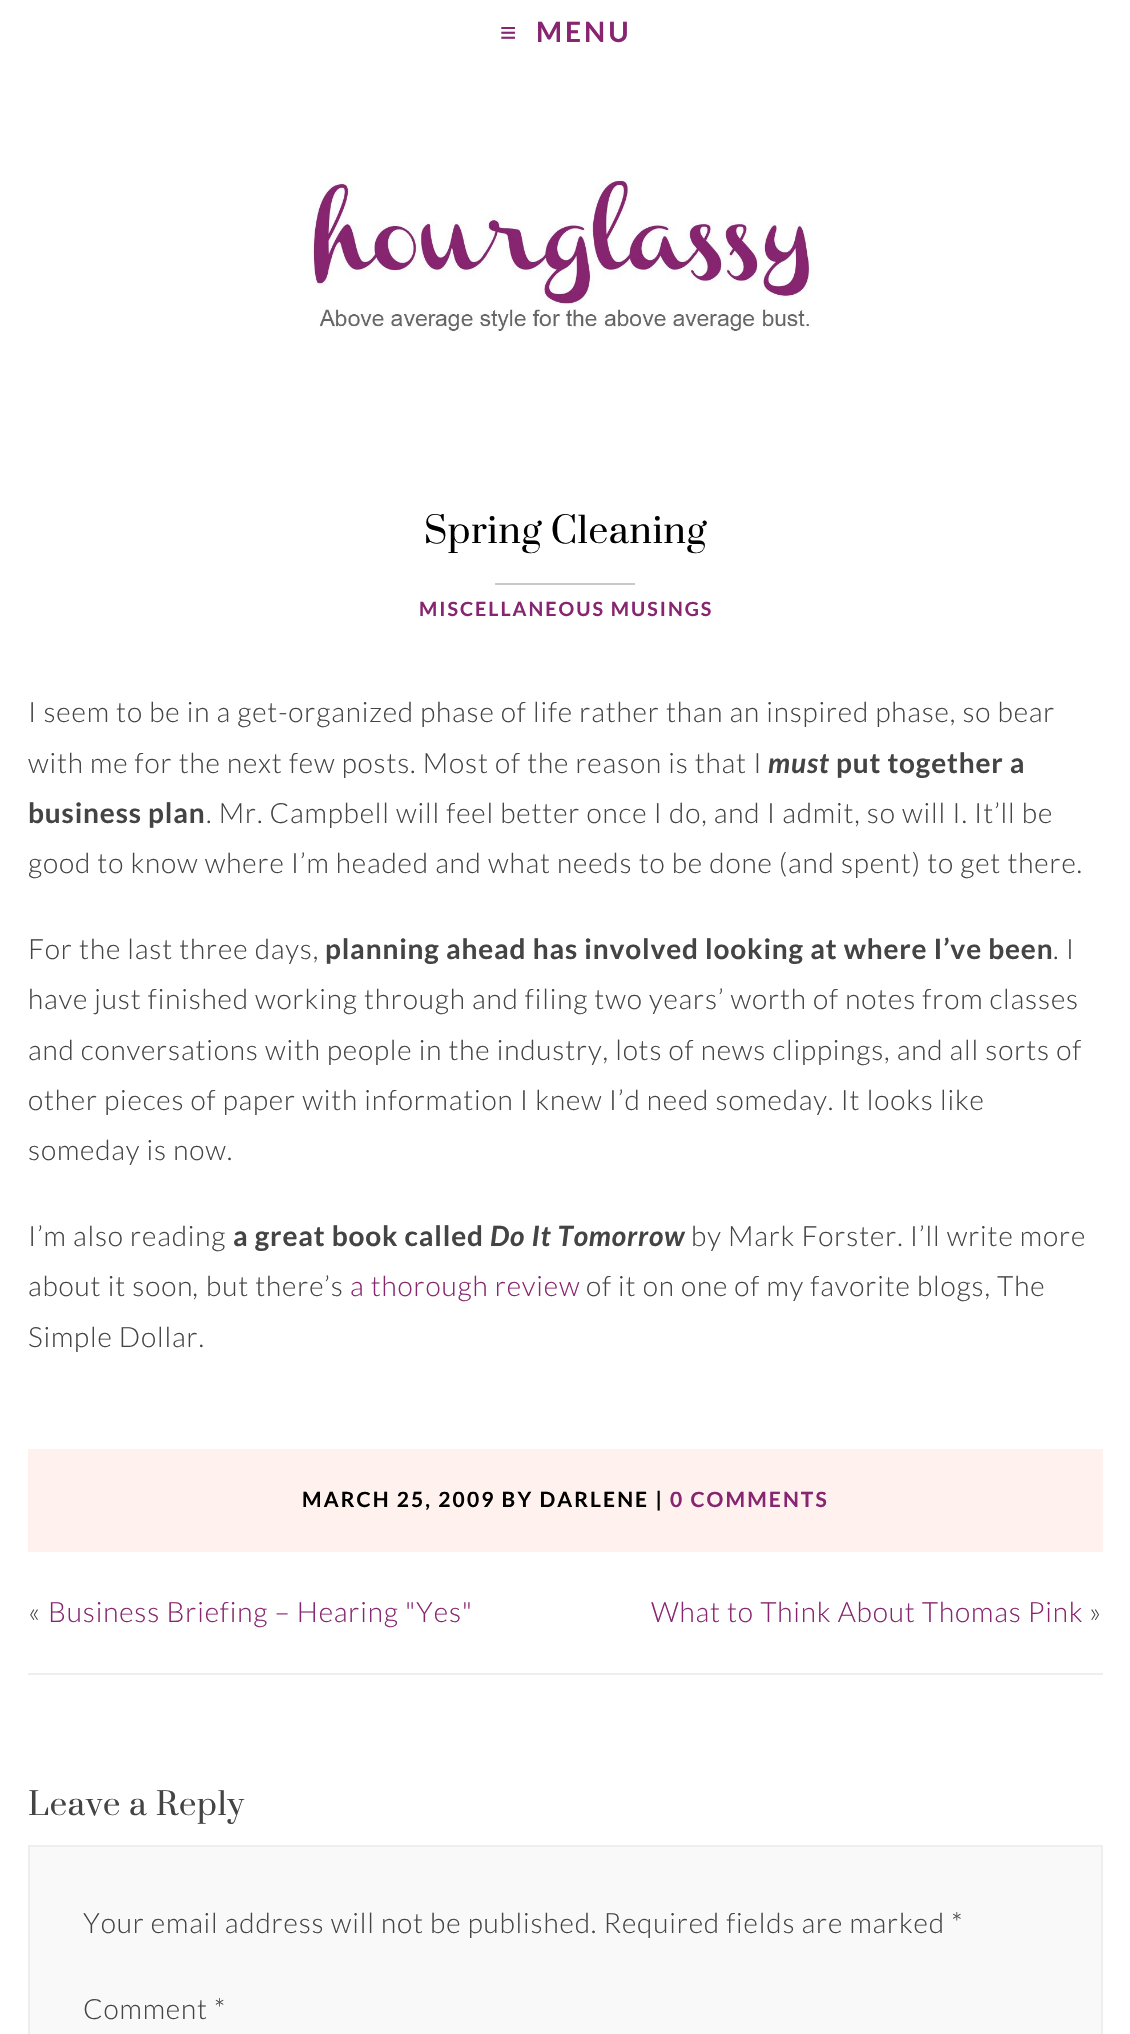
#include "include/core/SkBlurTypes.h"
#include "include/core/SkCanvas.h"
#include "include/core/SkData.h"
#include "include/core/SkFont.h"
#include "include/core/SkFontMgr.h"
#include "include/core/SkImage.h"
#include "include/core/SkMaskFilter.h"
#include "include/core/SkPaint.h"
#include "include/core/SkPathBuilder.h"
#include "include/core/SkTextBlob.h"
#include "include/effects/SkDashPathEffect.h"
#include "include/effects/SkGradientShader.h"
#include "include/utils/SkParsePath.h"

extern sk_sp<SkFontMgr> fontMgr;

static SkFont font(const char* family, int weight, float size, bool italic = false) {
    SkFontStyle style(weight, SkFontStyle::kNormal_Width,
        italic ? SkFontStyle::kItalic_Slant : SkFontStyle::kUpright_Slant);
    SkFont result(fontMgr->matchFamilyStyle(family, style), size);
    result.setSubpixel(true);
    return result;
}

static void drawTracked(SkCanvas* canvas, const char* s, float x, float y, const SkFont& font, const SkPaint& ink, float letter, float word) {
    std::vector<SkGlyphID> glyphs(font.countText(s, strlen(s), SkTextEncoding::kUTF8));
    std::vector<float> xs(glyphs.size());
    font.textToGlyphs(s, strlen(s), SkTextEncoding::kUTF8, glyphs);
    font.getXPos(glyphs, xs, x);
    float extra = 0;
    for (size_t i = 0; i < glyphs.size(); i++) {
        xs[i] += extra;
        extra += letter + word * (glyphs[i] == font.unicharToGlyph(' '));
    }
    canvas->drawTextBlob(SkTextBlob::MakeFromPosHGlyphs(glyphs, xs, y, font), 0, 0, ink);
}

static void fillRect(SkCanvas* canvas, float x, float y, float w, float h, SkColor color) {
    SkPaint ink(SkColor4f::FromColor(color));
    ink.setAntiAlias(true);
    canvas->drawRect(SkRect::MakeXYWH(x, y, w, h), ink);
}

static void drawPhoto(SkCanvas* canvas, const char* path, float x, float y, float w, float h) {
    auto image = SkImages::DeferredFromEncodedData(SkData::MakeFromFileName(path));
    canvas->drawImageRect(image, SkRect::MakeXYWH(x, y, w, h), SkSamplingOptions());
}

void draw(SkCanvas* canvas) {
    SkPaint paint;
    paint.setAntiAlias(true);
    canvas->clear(0xFFFFFFFF);
    SkFont font1 = font("Liberation Sans", 700, 28);
    paint.setColor(0xFF872570);
    drawTracked(canvas, "≡", 500, 42, font1, paint, 3, 0);
    SkFont font2 = font("Lato", 700, 28);
    drawTracked(canvas, "MENU", 536, 42, font2, paint, 3, 0);
    drawPhoto(canvas, "assets/img1.png", 311, 176, 502, 156);
    SkFont font3 = font("Suranna", 400, 44.75f);
    paint.setColor(0xFF000000);
    drawTracked(canvas, "Spring Cleaning", 424, 543, font3, paint, 0.85f, 0);
    fillRect(canvas, 495, 583, 140, 2, 0xFFC9C9C9);
    SkFont font4 = font("Lato", 700, 19.6f);
    paint.setColor(0xFF872570);
    drawTracked(canvas, "MISCELLANEOUS MUSINGS", 419, 616, font4, paint, 2, 0);
    SkFont font5 = font("Lato", 300, 28);
    paint.setColor(0xFF444444);
    drawTracked(canvas, "I seem to be in a get-organized phase of life rather than an inspired phase, so bear", 28, 722, font5, paint, 0.85f, 0);
    drawTracked(canvas, "with me for the next few posts. Most of the reason is that I", 28, 773, font5, paint, 0.85f, 0);
    SkFont font6 = font("Lato", 700, 28, true);
    drawTracked(canvas, "must", 768, 773, font6, paint, 0.85f, 0);
    drawTracked(canvas, "put together a", 836, 773, font2, paint, 0.85f, 0);
    drawTracked(canvas, "business plan", 28, 823, font2, paint, 0.85f, 0);
    drawTracked(canvas, ". Mr. Campbell will feel better once I do, and I admit, so will I. It’ll be", 206, 823, font5, paint, 0.85f, 0);
    drawTracked(canvas, "good to know where I’m headed and what needs to be done (and spent) to get there.", 28, 873, font5, paint, 0.85f, 0);
    drawTracked(canvas, "For the last three days,", 28, 959, font5, paint, 0.85f, 0);
    drawTracked(canvas, "planning ahead has involved looking at where I’ve been", 325, 959, font2, paint, 0.85f, 0);
    drawTracked(canvas, ". I", 1053, 959, font5, paint, 0.85f, 0);
    drawTracked(canvas, "have just finished working through and filing two years’ worth of notes from classes", 28, 1009, font5, paint, 0.85f, 0);
    drawTracked(canvas, "and conversations with people in the industry, lots of news clippings, and all sorts of", 28, 1060, font5, paint, 0.85f, 0);
    drawTracked(canvas, "other pieces of paper with information I knew I’d need someday. It looks like", 28, 1110, font5, paint, 0.85f, 0);
    drawTracked(canvas, "someday is now.", 28, 1160, font5, paint, 0.85f, 0);
    drawTracked(canvas, "I’m also reading", 28, 1246, font5, paint, 0.85f, 0);
    drawTracked(canvas, "a great book called", 233, 1246, font2, paint, 0.85f, 0);
    drawTracked(canvas, "Do It Tomorrow", 490, 1246, font6, paint, 0.85f, 0);
    drawTracked(canvas, "by Mark Forster. I’ll write more", 691, 1246, font5, paint, 0.85f, 0);
    drawTracked(canvas, "about it soon", 28, 1296, font5, paint, 0.85f, 0);
    SkFont font7 = font("Lato", 300, 28, true);
    drawTracked(canvas, ",", 193, 1296, font7, paint, 0.85f, 0);
    drawTracked(canvas, "but there’s", 206, 1296, font5, paint, 0.85f, 0);
    paint.setColor(0xFF872570);
    drawTracked(canvas, "a thorough review", 350, 1296, font5, paint, 0.85f, 0);
    paint.setColor(0xFF444444);
    drawTracked(canvas, "of it on one of my favorite blogs, The", 586, 1296, font5, paint, 0.85f, 0);
    drawTracked(canvas, "Simple Dollar.", 28, 1347, font5, paint, 0.85f, 0);
    fillRect(canvas, 28, 1449, 1075, 103, 0xFFFFF1EE);
    SkFont font8 = font("Lato", 700, 21);
    paint.setColor(0xFF000000);
    drawTracked(canvas, "MARCH 25, 2009 BY DARLENE |", 302, 1507, font8, paint, 2.1f, 0);
    paint.setColor(0xFF872570);
    drawTracked(canvas, "0 COMMENTS", 670, 1507, font8, paint, 2.1f, 0);
    fillRect(canvas, 28, 1673, 1075, 2, 0xFFEEEEEE);
    paint.setColor(0xFF444444);
    drawTracked(canvas, "«", 28, 1622, font5, paint, 0.85f, 0);
    paint.setColor(0xFF872570);
    drawTracked(canvas, "Business Briefing – Hearing \"Yes\"", 48, 1622, font5, paint, 0.85f, 0);
    drawTracked(canvas, "What to Think About Thomas Pink", 651, 1622, font5, paint, 0.85f, 0);
    paint.setColor(0xFF444444);
    drawTracked(canvas, "»", 1089, 1622, font5, paint, 0.85f, 0);
    SkFont font9 = font("Suranna", 400, 39.25f);
    drawTracked(canvas, "Leave a Reply", 28, 1815, font9, paint, 0.85f, 0);
    paint.setColor(0xFFF9F9F9);
    canvas->drawRect(SkRect::MakeXYWH(29, 1846, 1073, 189), paint);
    paint.setStroke(true);
    paint.setStrokeWidth(2);
    paint.setColor(0xFFEEEEEE);
    canvas->drawRect(SkRect::MakeXYWH(29, 1846, 1073, 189), paint);
    paint.setStroke(false);
    paint.setColor(0xFF444444);
    drawTracked(canvas, "Your email address will not be published. Required fields are marked *", 83, 1933, font5, paint, 0.85f, 0);
    drawTracked(canvas, "Comment *", 83, 2019, font5, paint, 0.85f, 0);
}
